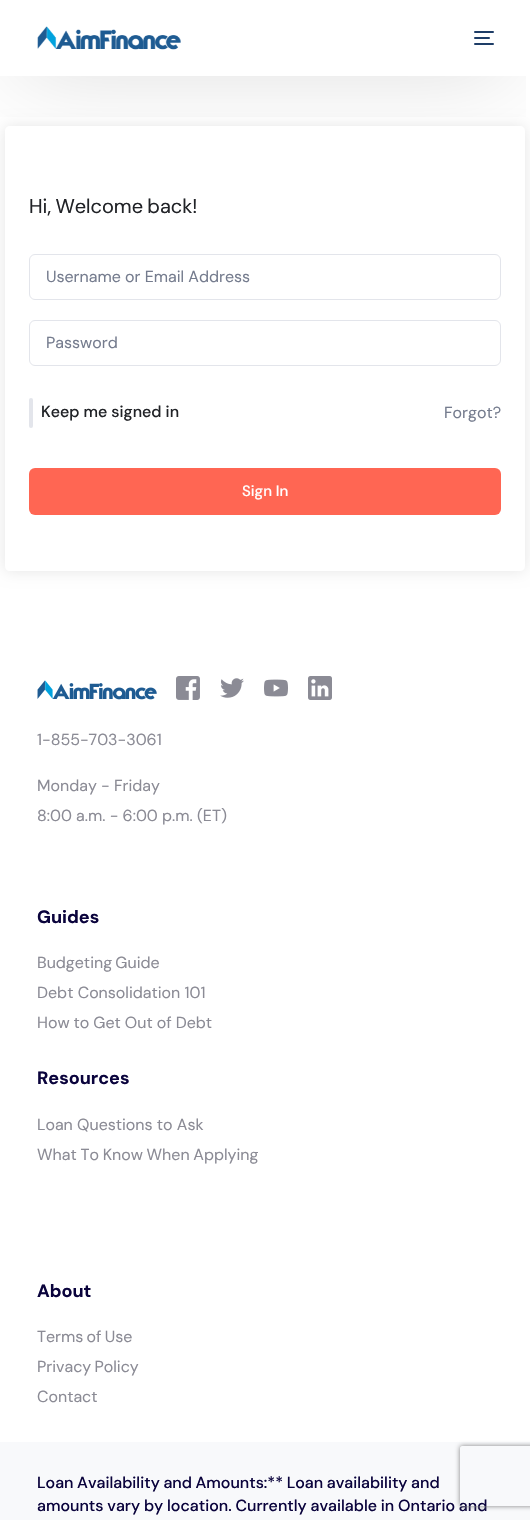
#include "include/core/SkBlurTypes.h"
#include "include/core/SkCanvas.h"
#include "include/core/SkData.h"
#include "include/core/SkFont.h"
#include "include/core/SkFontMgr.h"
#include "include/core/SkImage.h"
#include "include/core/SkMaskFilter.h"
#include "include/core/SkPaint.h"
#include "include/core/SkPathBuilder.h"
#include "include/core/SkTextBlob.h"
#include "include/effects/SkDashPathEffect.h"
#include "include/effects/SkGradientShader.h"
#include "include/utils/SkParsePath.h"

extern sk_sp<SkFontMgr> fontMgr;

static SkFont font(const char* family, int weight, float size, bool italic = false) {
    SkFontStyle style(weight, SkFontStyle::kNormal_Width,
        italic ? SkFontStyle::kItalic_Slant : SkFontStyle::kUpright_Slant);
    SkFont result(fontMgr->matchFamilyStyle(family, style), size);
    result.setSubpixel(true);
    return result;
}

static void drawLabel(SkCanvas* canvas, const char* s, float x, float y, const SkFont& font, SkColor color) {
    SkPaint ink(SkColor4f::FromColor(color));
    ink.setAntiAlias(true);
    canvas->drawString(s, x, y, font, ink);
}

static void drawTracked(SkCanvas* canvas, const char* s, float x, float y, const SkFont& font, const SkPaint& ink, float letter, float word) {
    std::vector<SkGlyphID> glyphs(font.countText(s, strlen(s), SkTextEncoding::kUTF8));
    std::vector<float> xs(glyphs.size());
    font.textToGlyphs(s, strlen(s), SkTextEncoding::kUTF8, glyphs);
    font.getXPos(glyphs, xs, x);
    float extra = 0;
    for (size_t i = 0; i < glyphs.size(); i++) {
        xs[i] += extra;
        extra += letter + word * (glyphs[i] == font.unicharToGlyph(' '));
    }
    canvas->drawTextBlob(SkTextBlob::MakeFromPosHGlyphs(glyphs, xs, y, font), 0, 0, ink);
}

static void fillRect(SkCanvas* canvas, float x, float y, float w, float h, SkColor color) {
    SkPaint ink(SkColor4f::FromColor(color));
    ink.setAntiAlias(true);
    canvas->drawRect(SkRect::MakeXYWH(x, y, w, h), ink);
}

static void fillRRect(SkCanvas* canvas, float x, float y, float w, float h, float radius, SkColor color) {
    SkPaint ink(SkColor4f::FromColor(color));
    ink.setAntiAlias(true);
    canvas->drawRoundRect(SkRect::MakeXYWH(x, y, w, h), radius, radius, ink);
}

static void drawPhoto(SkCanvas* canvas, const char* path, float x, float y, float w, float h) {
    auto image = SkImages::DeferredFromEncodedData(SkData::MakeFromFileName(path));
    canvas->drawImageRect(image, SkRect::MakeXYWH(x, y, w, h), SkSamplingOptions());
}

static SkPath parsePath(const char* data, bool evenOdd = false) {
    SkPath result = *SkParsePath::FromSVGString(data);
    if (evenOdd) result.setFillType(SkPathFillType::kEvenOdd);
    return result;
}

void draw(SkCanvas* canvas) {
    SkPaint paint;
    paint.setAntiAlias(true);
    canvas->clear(0xFFFFFFFF);
    canvas->save();
    canvas->clipRect(SkRect::MakeXYWH(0, 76, 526, 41));
    paint.setColor(0x40000000);
    paint.setMaskFilter(SkMaskFilter::MakeBlur(kNormal_SkBlurStyle, 45));
    canvas->drawRect(SkRect::MakeXYWH(18, 23, 490, 36), paint);
    paint.setMaskFilter(nullptr);
    canvas->restore();
    drawPhoto(canvas, "assets/img1.png", 37, 26, 144, 24);
    fillRRect(canvas, 474, 31, 20, 2, 1, 0xFF1E3D67);
    fillRRect(canvas, 474, 37, 16, 2, 1, 0xFF1E3D67);
    fillRRect(canvas, 474, 43, 20, 2, 1, 0xFF1E3D67);
    canvas->save();
    canvas->clipPath(parsePath("M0 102H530V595H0ZM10 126H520C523 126 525 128 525 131V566C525 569 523 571 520 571H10C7 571 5 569 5 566V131C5 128 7 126 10 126Z", true), true);
    paint.setColor(0x1A000000);
    paint.setMaskFilter(SkMaskFilter::MakeBlur(kNormal_SkBlurStyle, 7.5f));
    canvas->drawRoundRect(SkRect::MakeXYWH(5, 126, 520, 445), 5, 5, paint);
    paint.setMaskFilter(nullptr);
    canvas->restore();
    SkFont font1 = font("DM Sans", 400, 20);
    paint.setColor(0xFF212327);
    drawTracked(canvas, "Hi, Welcome back!", 29, 213, font1, paint, 0, -1);
    paint.setStroke(true);
    paint.setStrokeWidth(1);
    paint.setColor(0xFFE3E5EB);
    canvas->drawRoundRect(SkRect::MakeXYWH(29.5f, 254.5f, 471, 45), 5.5f, 5.5f, paint);
    SkFont font2 = font("DM Sans", 400, 16);
    drawLabel(canvas, "Username or Email Address", 46, 282, font2, 0xFF757C8E);
    canvas->drawRoundRect(SkRect::MakeXYWH(29.5f, 320.5f, 471, 45), 5.5f, 5.5f, paint);
    drawLabel(canvas, "Password", 46, 348, font2, 0xFF757C8E);
    fillRRect(canvas, 29, 398, 4, 30, 2, 0xFFE3E5EB);
    SkFont font3 = font("DM Sans", 500, 16);
    drawLabel(canvas, "Keep me signed in", 41, 417, font3, 0xFF212327);
    drawLabel(canvas, "Forgot?", 444, 418, font2, 0xFF757C8E);
    fillRRect(canvas, 29, 468, 472, 47, 6, 0xFFFF6653);
    SkFont font4 = font("DM Sans", 500, 15);
    drawLabel(canvas, "Sign In", 242, 496, font4, 0xFFFFFFFF);
    drawPhoto(canvas, "assets/img2.png", 37, 680, 120, 20);
    drawPhoto(canvas, "assets/img3.png", 176, 676, 24, 24);
    drawPhoto(canvas, "assets/img4.png", 220, 678, 24, 20);
    drawPhoto(canvas, "assets/img5.png", 264, 679, 24, 18);
    drawPhoto(canvas, "assets/img6.png", 308, 676, 24, 24);
    drawLabel(canvas, "1-855-703-3061", 37, 745, font2, 0xFF8B8B95);
    drawLabel(canvas, "Monday - Friday", 37, 791, font2, 0xFF8B8B95);
    drawLabel(canvas, "8:00 a.m. - 6:00 p.m. (ET)", 37, 821, font2, 0xFF8B8B95);
    SkFont font5 = font("DM Sans", 700, 18);
    drawLabel(canvas, "Guides", 37, 923, font5, 0xFF0A033C);
    paint.setStroke(false);
    paint.setColor(0xFF8B8B95);
    drawTracked(canvas, "Budgeting Guide", 37, 968, font2, paint, 0, -1);
    drawLabel(canvas, "Debt Consolidation 101", 37, 998, font2, 0xFF8B8B95);
    drawTracked(canvas, "How to Get Out of Debt", 37, 1028, font2, paint, 0, -0.25f);
    drawLabel(canvas, "Resources", 37, 1084, font5, 0xFF0A033C);
    drawLabel(canvas, "Loan Questions to Ask", 37, 1130, font2, 0xFF8B8B95);
    drawTracked(canvas, "What To Know When Applying", 37, 1160, font2, paint, 0, -0.5f);
    drawLabel(canvas, "About", 37, 1297, font5, 0xFF0A033C);
    drawTracked(canvas, "Terms of Use", 37, 1342, font2, paint, 0, -1);
    drawTracked(canvas, "Privacy Policy", 37, 1372, font2, paint, 0, -1);
    drawLabel(canvas, "Contact", 37, 1402, font2, 0xFF8B8B95);
    fillRect(canvas, 0, 1442, 530, 78, 0xFFF8F9FB);
    paint.setColor(0xFF0A033C);
    drawTracked(canvas, "Loan Availability and Amounts:** Loan availability and", 37, 1488, font3, paint, 0, -0.5f);
    drawTracked(canvas, "amounts vary by location. Currently available in Ontario and", 37, 1511, font3, paint, 0, -0.25f);
    canvas->save();
    canvas->clipPath(parsePath("M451 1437H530V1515H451ZM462 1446H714C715 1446 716 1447 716 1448V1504C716 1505 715 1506 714 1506H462C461 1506 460 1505 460 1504V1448C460 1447 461 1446 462 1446Z", true), true);
    paint.setColor(0xFF808080);
    paint.setMaskFilter(SkMaskFilter::MakeBlur(kNormal_SkBlurStyle, 2.5f));
    canvas->drawRoundRect(SkRect::MakeXYWH(460, 1446, 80, 60), 2, 2, paint);
    paint.setMaskFilter(nullptr);
    canvas->restore();
}
